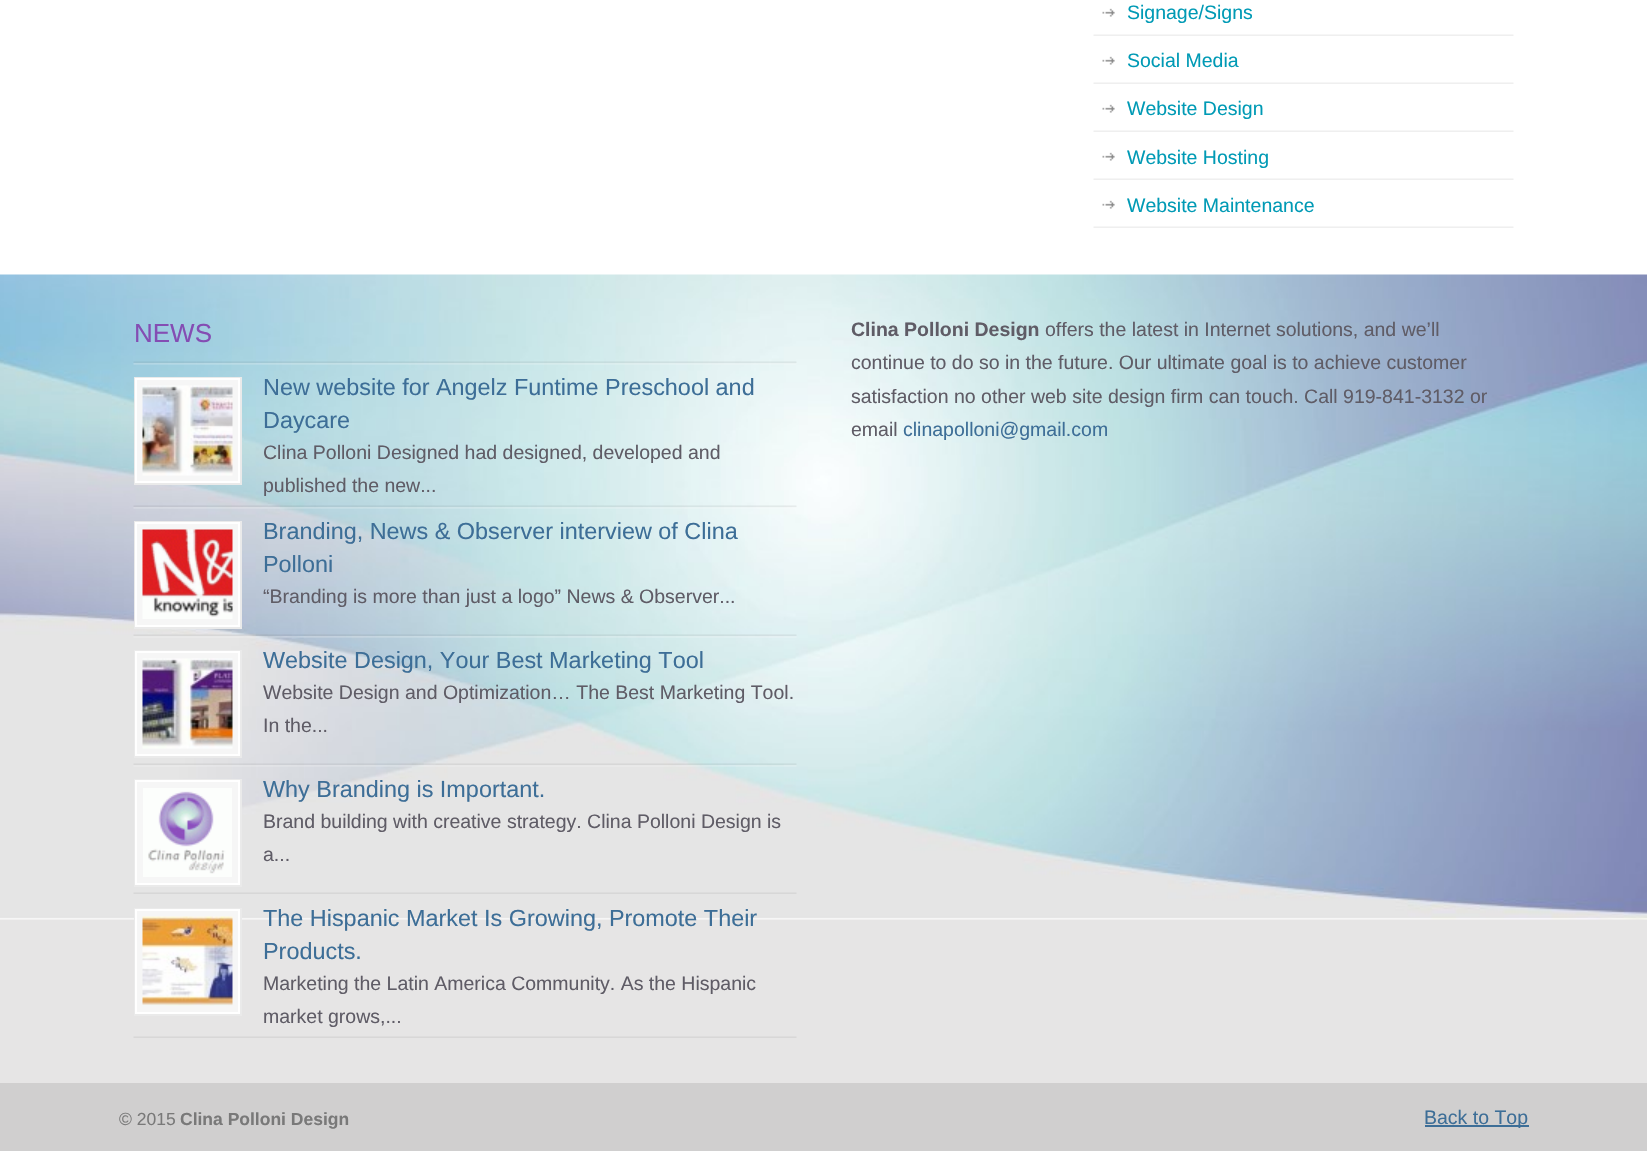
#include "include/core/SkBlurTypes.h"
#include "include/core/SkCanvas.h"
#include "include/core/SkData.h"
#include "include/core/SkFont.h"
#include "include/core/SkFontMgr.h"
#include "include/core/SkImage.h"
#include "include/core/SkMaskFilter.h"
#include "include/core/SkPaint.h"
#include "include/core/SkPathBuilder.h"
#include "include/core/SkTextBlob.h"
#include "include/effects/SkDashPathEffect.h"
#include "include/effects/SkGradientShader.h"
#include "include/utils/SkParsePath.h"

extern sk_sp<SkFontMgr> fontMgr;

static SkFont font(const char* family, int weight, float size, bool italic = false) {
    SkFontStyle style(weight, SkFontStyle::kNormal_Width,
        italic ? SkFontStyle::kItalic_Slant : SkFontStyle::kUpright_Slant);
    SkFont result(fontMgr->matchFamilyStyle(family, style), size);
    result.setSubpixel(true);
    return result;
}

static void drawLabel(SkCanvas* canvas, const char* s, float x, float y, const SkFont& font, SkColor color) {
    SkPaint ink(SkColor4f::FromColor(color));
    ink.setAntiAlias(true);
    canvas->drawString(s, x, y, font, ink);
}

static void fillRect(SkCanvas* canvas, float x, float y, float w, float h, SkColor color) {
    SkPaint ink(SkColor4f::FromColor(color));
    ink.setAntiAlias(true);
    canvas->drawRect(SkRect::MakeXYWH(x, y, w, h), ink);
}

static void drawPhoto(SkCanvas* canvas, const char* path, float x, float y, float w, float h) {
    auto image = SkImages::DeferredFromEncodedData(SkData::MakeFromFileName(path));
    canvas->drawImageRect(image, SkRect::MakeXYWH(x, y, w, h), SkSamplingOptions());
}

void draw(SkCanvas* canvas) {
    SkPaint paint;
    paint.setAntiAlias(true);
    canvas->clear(0xFFFFFFFF);
    drawPhoto(canvas, "assets/img1.png", 1102, 8, 13, 9);
    drawPhoto(canvas, "assets/img2.png", 1093, 34, 421, 2);
    SkFont font1 = font("Liberation Sans", 400, 19.5f);
    drawLabel(canvas, "Signage/Signs", 1127, 19, font1, 0xFF009AB5);
    drawPhoto(canvas, "assets/img1.png", 1102, 56, 13, 9);
    drawPhoto(canvas, "assets/img2.png", 1093, 82, 421, 2);
    drawLabel(canvas, "Social Media", 1127, 67, font1, 0xFF009AB5);
    drawPhoto(canvas, "assets/img1.png", 1102, 104, 13, 9);
    drawPhoto(canvas, "assets/img2.png", 1093, 130, 421, 2);
    drawLabel(canvas, "Website Design", 1127, 115, font1, 0xFF009AB5);
    drawPhoto(canvas, "assets/img1.png", 1102, 152, 13, 9);
    drawPhoto(canvas, "assets/img2.png", 1093, 178, 421, 2);
    drawLabel(canvas, "Website Hosting", 1127, 164, font1, 0xFF009AB5);
    drawPhoto(canvas, "assets/img1.png", 1102, 200, 13, 9);
    drawPhoto(canvas, "assets/img2.png", 1093, 226, 421, 2);
    drawLabel(canvas, "Website Maintenance", 1127, 212, font1, 0xFF009AB5);
    fillRect(canvas, 0, 919, 1647, 164, 0xFFE6E5E5);
    drawPhoto(canvas, "assets/img3.png", 0, 274, 1647, 646);
    drawPhoto(canvas, "assets/img4.png", 133, 361, 664, 4);
    SkFont font2 = font("Liberation Sans", 400, 26);
    drawLabel(canvas, "NEWS", 134, 342, font2, 0xFF844DB3);
    drawPhoto(canvas, "assets/img5.png", 133, 505, 664, 4);
    fillRect(canvas, 137, 380, 101, 101, 0xFFF6F6F6);
    paint.setStroke(true);
    paint.setStrokeWidth(2);
    paint.setColor(0xFFEAEAEA);
    canvas->drawRect(SkRect::MakeXYWH(135, 378, 106, 106), paint);
    paint.setColor(0xFFFFFFFF);
    canvas->drawRect(SkRect::MakeXYWH(136, 379, 103, 103), paint);
    drawPhoto(canvas, "assets/img6.png", 142, 385, 91, 91);
    SkFont font3 = font("Liberation Sans", 400, 23.4f);
    drawLabel(canvas, "New website for Angelz Funtime Preschool and", 263, 395, font3, 0xFF3D6E97);
    drawLabel(canvas, "Daycare", 263, 428, font3, 0xFF3D6E97);
    drawLabel(canvas, "Clina Polloni Designed had designed, developed and", 263, 459, font1, 0xFF5F5C66);
    drawLabel(canvas, "published the new...", 263, 492, font1, 0xFF5F5C66);
    drawPhoto(canvas, "assets/img7.png", 133, 634, 664, 4);
    fillRect(canvas, 137, 524, 101, 101, 0xFFF6F6F6);
    paint.setColor(0xFFEAEAEA);
    canvas->drawRect(SkRect::MakeXYWH(135, 522, 106, 106), paint);
    paint.setColor(0xFFFFFFFF);
    canvas->drawRect(SkRect::MakeXYWH(136, 523, 103, 103), paint);
    drawPhoto(canvas, "assets/img8.png", 142, 529, 91, 90);
    drawLabel(canvas, "Branding, News & Observer interview of Clina", 263, 539, font3, 0xFF3D6E97);
    drawLabel(canvas, "Polloni", 263, 572, font3, 0xFF3D6E97);
    drawLabel(canvas, "“Branding is more than just a logo” News & Observer...", 263, 603, font1, 0xFF5F5C66);
    drawPhoto(canvas, "assets/img9.png", 133, 763, 664, 4);
    fillRect(canvas, 137, 653, 101, 101, 0xFFF6F6F6);
    paint.setColor(0xFFEAEAEA);
    canvas->drawRect(SkRect::MakeXYWH(135, 651, 106, 106), paint);
    paint.setColor(0xFFFFFFFF);
    canvas->drawRect(SkRect::MakeXYWH(136, 652, 103, 103), paint);
    drawPhoto(canvas, "assets/img10.png", 142, 658, 91, 91);
    drawLabel(canvas, "Website Design, Your Best Marketing Tool", 263, 668, font3, 0xFF3D6E97);
    drawLabel(canvas, "Website Design and Optimization… The Best Marketing Tool.", 263, 699, font1, 0xFF5F5C66);
    drawLabel(canvas, "In the...", 263, 732, font1, 0xFF5F5C66);
    drawPhoto(canvas, "assets/img11.png", 133, 892, 664, 2);
    fillRect(canvas, 137, 782, 101, 101, 0xFFF6F6F6);
    paint.setColor(0xFFEAEAEA);
    canvas->drawRect(SkRect::MakeXYWH(135, 780, 106, 106), paint);
    paint.setColor(0xFFFFFFFF);
    canvas->drawRect(SkRect::MakeXYWH(136, 781, 103, 103), paint);
    drawPhoto(canvas, "assets/img12.png", 143, 788, 89, 89);
    drawLabel(canvas, "Why Branding is Important.", 263, 797, font3, 0xFF3D6E97);
    drawLabel(canvas, "Brand building with creative strategy. Clina Polloni Design is", 263, 828, font1, 0xFF5F5C66);
    drawLabel(canvas, "a...", 263, 861, font1, 0xFF5F5C66);
    drawPhoto(canvas, "assets/img13.png", 133, 1036, 664, 2);
    fillRect(canvas, 137, 911, 101, 101, 0xFFF6F6F6);
    paint.setColor(0xFFEAEAEA);
    canvas->drawRect(SkRect::MakeXYWH(135, 909, 106, 106), paint);
    paint.setColor(0xFFFFFFFF);
    canvas->drawRect(SkRect::MakeXYWH(136, 910, 103, 103), paint);
    drawPhoto(canvas, "assets/img14.png", 142, 916, 91, 90);
    drawLabel(canvas, "The Hispanic Market Is Growing, Promote Their", 263, 926, font3, 0xFF3D6E97);
    drawLabel(canvas, "Products.", 263, 959, font3, 0xFF3D6E97);
    drawLabel(canvas, "Marketing the Latin America Community. As the Hispanic", 263, 990, font1, 0xFF5F5C66);
    drawLabel(canvas, "market grows,...", 263, 1023, font1, 0xFF5F5C66);
    SkFont font4 = font("Liberation Sans", 700, 19.5f);
    drawLabel(canvas, "Clina Polloni Design", 851, 336, font4, 0xFF5F5C66);
    drawLabel(canvas, "offers the latest in Internet solutions, and we’ll", 1045, 336, font1, 0xFF5F5C66);
    drawLabel(canvas, "continue to do so in the future. Our ultimate goal is to achieve customer", 851, 369, font1, 0xFF5F5C66);
    drawLabel(canvas, "satisfaction no other web site design firm can touch. Call 919-841-3132 or", 851, 403, font1, 0xFF5F5C66);
    drawLabel(canvas, "email", 851, 436, font1, 0xFF5F5C66);
    drawLabel(canvas, "clinapolloni@gmail.com", 903, 436, font1, 0xFF3D6E97);
    fillRect(canvas, 0, 1083, 1647, 68, 0xFFD0CFCF);
    SkFont font5 = font("Liberation Sans", 400, 17.5f);
    drawLabel(canvas, "© 2015", 119, 1125, font5, 0xFF797979);
    SkFont font6 = font("Liberation Sans", 700, 17.5f);
    drawLabel(canvas, "Clina Polloni Design", 180, 1125, font6, 0xFF797979);
    fillRect(canvas, 1425, 1125, 104, 2, 0xFF3D6E97);
    drawLabel(canvas, "Back to Top", 1424, 1124, font1, 0xFF3D6E97);
}
